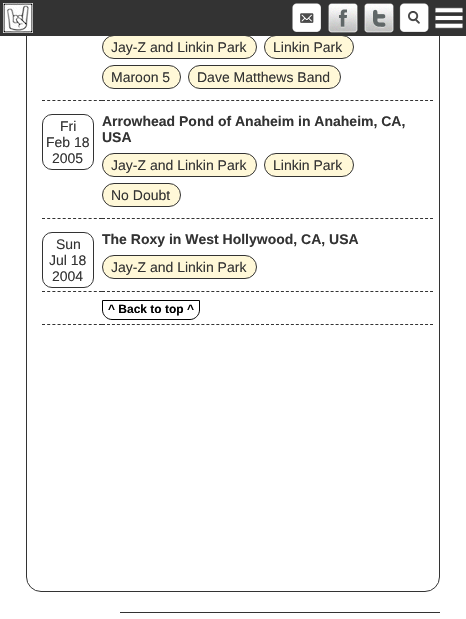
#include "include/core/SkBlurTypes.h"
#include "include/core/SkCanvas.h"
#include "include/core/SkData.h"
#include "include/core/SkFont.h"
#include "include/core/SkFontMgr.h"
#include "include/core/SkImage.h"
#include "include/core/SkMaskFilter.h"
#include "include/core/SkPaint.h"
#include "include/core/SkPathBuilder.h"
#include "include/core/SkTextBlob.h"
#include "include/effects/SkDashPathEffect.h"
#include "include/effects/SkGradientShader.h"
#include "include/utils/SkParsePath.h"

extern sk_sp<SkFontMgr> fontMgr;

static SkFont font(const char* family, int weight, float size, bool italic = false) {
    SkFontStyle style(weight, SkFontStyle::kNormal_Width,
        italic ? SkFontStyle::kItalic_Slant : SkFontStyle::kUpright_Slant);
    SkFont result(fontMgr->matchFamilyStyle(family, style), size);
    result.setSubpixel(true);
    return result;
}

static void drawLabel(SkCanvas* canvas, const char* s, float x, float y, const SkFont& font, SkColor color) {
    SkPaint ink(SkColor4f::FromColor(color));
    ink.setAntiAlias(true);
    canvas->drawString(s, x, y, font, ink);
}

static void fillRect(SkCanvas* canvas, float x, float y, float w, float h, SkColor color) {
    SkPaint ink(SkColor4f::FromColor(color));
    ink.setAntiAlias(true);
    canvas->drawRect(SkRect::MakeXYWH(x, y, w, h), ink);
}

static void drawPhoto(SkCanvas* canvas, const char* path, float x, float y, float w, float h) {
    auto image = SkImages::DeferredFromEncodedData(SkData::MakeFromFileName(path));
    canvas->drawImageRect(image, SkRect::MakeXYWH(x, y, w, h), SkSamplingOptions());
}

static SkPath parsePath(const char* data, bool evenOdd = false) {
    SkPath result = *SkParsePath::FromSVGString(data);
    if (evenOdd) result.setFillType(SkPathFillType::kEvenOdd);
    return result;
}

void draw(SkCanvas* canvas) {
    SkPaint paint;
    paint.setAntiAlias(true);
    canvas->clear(0xFFFFFFFF);
    paint.setStroke(true);
    paint.setStrokeWidth(1);
    paint.setColor(0xFF333333);
    canvas->drawRoundRect(SkRect::MakeXYWH(26.5f, -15.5f, 413, 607), 14.5f, 14.5f, paint);
    paint.setStroke(false);
    paint.setColor(0xFFFFF8D8);
    canvas->drawRoundRect(SkRect::MakeXYWH(102.5f, 35.5f, 154, 23), 11.5f, 11.5f, paint);
    paint.setStroke(true);
    paint.setColor(0xFF333333);
    canvas->drawRoundRect(SkRect::MakeXYWH(102.5f, 35.5f, 154, 23), 11.5f, 11.5f, paint);
    paint.setStroke(false);
    paint.setColor(0xFFFFF8D8);
    canvas->drawRoundRect(SkRect::MakeXYWH(264.5f, 35.5f, 89, 23), 11.5f, 11.5f, paint);
    paint.setStroke(true);
    paint.setColor(0xFF333333);
    canvas->drawRoundRect(SkRect::MakeXYWH(264.5f, 35.5f, 89, 23), 11.5f, 11.5f, paint);
    fillRect(canvas, 0, 0, 466, 36, 0xFF333333);
    drawPhoto(canvas, "assets/img1.png", 3, 3, 30, 30);
    drawPhoto(canvas, "assets/img2.png", 292, 3, 29, 30);
    drawPhoto(canvas, "assets/img3.png", 328, 3, 30, 30);
    drawPhoto(canvas, "assets/img4.png", 364, 3, 30, 30);
    drawPhoto(canvas, "assets/img5.png", 399, 3, 30, 30);
    drawPhoto(canvas, "assets/img6.png", 435, 7, 28, 22);
    paint.setPathEffect(SkDashPathEffect::Make({{3, 1.97f}}, 0));
    canvas->drawPath(parsePath("M102 100.5H433"), paint);
    paint.setPathEffect(nullptr);
    SkFont font1 = font("Liberation Sans", 400, 14);
    drawLabel(canvas, "Jay-Z and Linkin Park", 111, 52, font1, 0xFF333333);
    drawLabel(canvas, "Linkin Park", 273, 52, font1, 0xFF333333);
    paint.setStroke(false);
    paint.setColor(0xFFFFF8D8);
    canvas->drawRoundRect(SkRect::MakeXYWH(102.5f, 65.5f, 78, 23), 11.5f, 11.5f, paint);
    paint.setStroke(true);
    paint.setColor(0xFF333333);
    canvas->drawRoundRect(SkRect::MakeXYWH(102.5f, 65.5f, 78, 23), 11.5f, 11.5f, paint);
    drawLabel(canvas, "Maroon 5", 111, 82, font1, 0xFF333333);
    paint.setStroke(false);
    paint.setColor(0xFFFFF8D8);
    canvas->drawRoundRect(SkRect::MakeXYWH(188.5f, 65.5f, 152, 23), 11.5f, 11.5f, paint);
    paint.setStroke(true);
    paint.setColor(0xFF333333);
    canvas->drawRoundRect(SkRect::MakeXYWH(188.5f, 65.5f, 152, 23), 11.5f, 11.5f, paint);
    drawLabel(canvas, "Dave Matthews Band", 197, 82, font1, 0xFF333333);
    paint.setPathEffect(SkDashPathEffect::Make({{3, 2.18f}}, 0));
    canvas->drawPath(parsePath("M42 100.5H102"), paint);
    paint.setPathEffect(nullptr);
    paint.setPathEffect(SkDashPathEffect::Make({{3, 2.18f}}, 0));
    canvas->drawPath(parsePath("M42 218.5H102"), paint);
    paint.setPathEffect(nullptr);
    canvas->drawRoundRect(SkRect::MakeXYWH(42.5f, 114.5f, 51, 55), 9.5f, 9.5f, paint);
    drawLabel(canvas, "Fri", 60, 131, font1, 0xFF333333);
    drawLabel(canvas, "Feb 18", 46, 147, font1, 0xFF333333);
    drawLabel(canvas, "2005", 52, 163, font1, 0xFF333333);
    paint.setPathEffect(SkDashPathEffect::Make({{3, 1.97f}}, 0));
    canvas->drawPath(parsePath("M102 218.5H433"), paint);
    paint.setPathEffect(nullptr);
    SkFont font2 = font("Liberation Sans", 700, 14);
    drawLabel(canvas, "Arrowhead Pond of Anaheim in Anaheim, CA,", 102, 126, font2, 0xFF333333);
    drawLabel(canvas, "USA", 102, 142, font2, 0xFF333333);
    paint.setStroke(false);
    paint.setColor(0xFFFFF8D8);
    canvas->drawRoundRect(SkRect::MakeXYWH(102.5f, 153.5f, 154, 23), 11.5f, 11.5f, paint);
    paint.setStroke(true);
    paint.setColor(0xFF333333);
    canvas->drawRoundRect(SkRect::MakeXYWH(102.5f, 153.5f, 154, 23), 11.5f, 11.5f, paint);
    drawLabel(canvas, "Jay-Z and Linkin Park", 111, 170, font1, 0xFF333333);
    paint.setStroke(false);
    paint.setColor(0xFFFFF8D8);
    canvas->drawRoundRect(SkRect::MakeXYWH(264.5f, 153.5f, 89, 23), 11.5f, 11.5f, paint);
    paint.setStroke(true);
    paint.setColor(0xFF333333);
    canvas->drawRoundRect(SkRect::MakeXYWH(264.5f, 153.5f, 89, 23), 11.5f, 11.5f, paint);
    drawLabel(canvas, "Linkin Park", 273, 170, font1, 0xFF333333);
    paint.setStroke(false);
    paint.setColor(0xFFFFF8D8);
    canvas->drawRoundRect(SkRect::MakeXYWH(102.5f, 183.5f, 78, 23), 11.5f, 11.5f, paint);
    paint.setStroke(true);
    paint.setColor(0xFF333333);
    canvas->drawRoundRect(SkRect::MakeXYWH(102.5f, 183.5f, 78, 23), 11.5f, 11.5f, paint);
    drawLabel(canvas, "No Doubt", 111, 200, font1, 0xFF333333);
    paint.setPathEffect(SkDashPathEffect::Make({{3, 2.18f}}, 0));
    canvas->drawPath(parsePath("M42 291.5H102"), paint);
    paint.setPathEffect(nullptr);
    canvas->drawRoundRect(SkRect::MakeXYWH(42.5f, 232.5f, 51, 55), 9.5f, 9.5f, paint);
    drawLabel(canvas, "Sun", 56, 249, font1, 0xFF333333);
    drawLabel(canvas, "Jul 18", 49, 265, font1, 0xFF333333);
    drawLabel(canvas, "2004", 52, 281, font1, 0xFF333333);
    paint.setPathEffect(SkDashPathEffect::Make({{3, 1.97f}}, 0));
    canvas->drawPath(parsePath("M102 291.5H433"), paint);
    paint.setPathEffect(nullptr);
    drawLabel(canvas, "The Roxy in West Hollywood, CA, USA", 102, 244, font2, 0xFF333333);
    paint.setStroke(false);
    paint.setColor(0xFFFFF8D8);
    canvas->drawRoundRect(SkRect::MakeXYWH(102.5f, 255.5f, 154, 23), 11.5f, 11.5f, paint);
    paint.setStroke(true);
    paint.setColor(0xFF333333);
    canvas->drawRoundRect(SkRect::MakeXYWH(102.5f, 255.5f, 154, 23), 11.5f, 11.5f, paint);
    drawLabel(canvas, "Jay-Z and Linkin Park", 111, 272, font1, 0xFF333333);
    paint.setPathEffect(SkDashPathEffect::Make({{3, 1.97f}}, 0));
    canvas->drawPath(parsePath("M102 324.5H433"), paint);
    paint.setPathEffect(nullptr);
    paint.setColor(0xFF000000);
    canvas->drawPath(parsePath("M102.5 300.5H199.5V310C199.5 315 195 319.5 190 319.5H112C107 319.5 102.5 315 102.5 310Z"), paint);
    SkFont font3 = font("Liberation Sans", 700, 12);
    drawLabel(canvas, "^ Back to top ^", 108, 313, font3, 0xFF000000);
    paint.setColor(0xFF333333);
    paint.setPathEffect(SkDashPathEffect::Make({{3, 2.18f}}, 0));
    canvas->drawPath(parsePath("M42 324.5H102"), paint);
    paint.setPathEffect(nullptr);
    fillRect(canvas, 120, 612, 320, 1, 0xFF333333);
}
